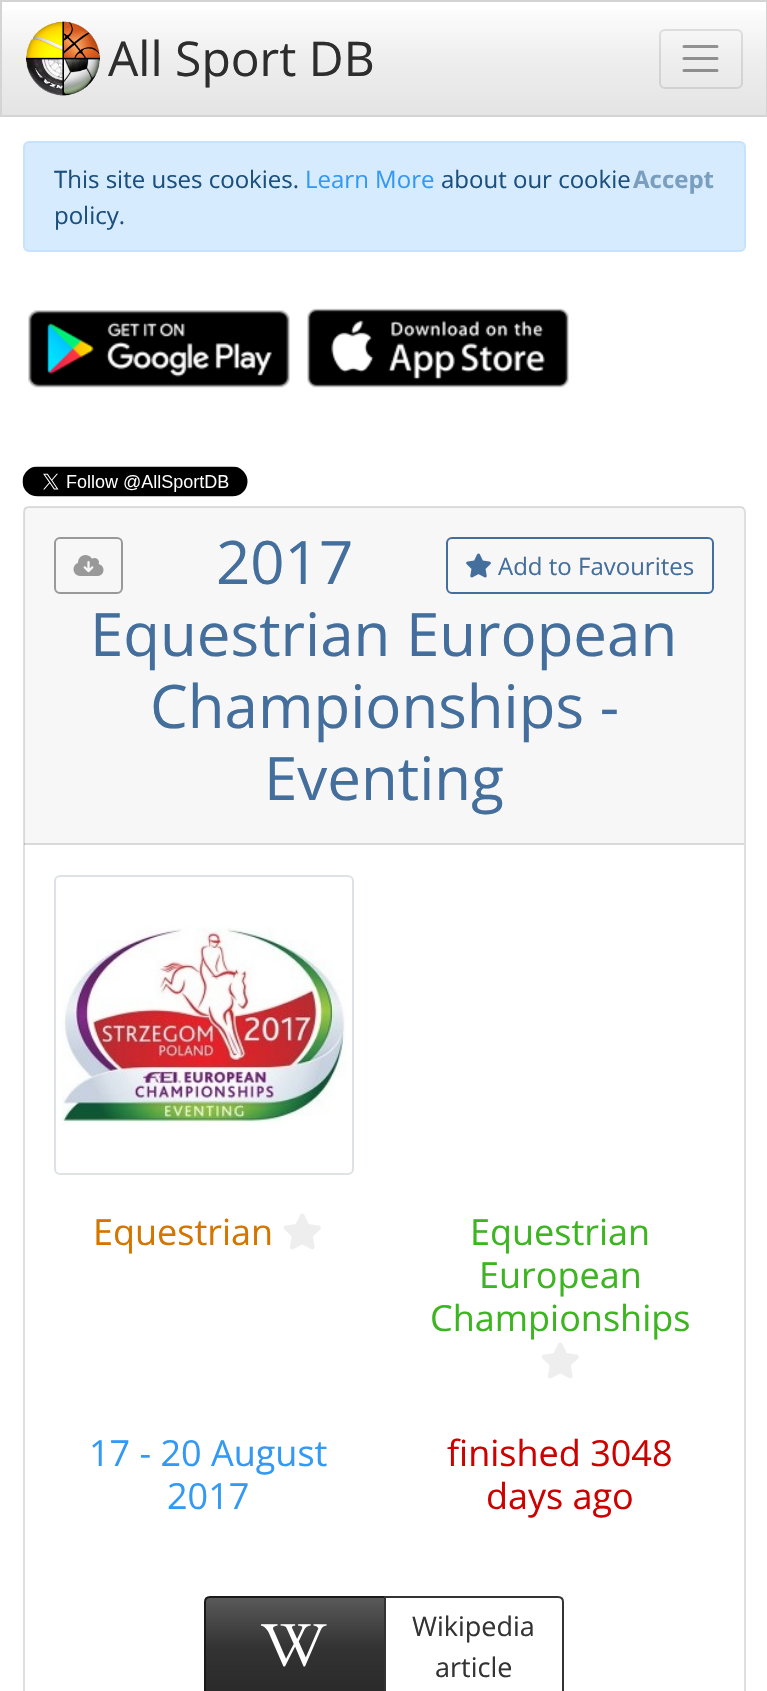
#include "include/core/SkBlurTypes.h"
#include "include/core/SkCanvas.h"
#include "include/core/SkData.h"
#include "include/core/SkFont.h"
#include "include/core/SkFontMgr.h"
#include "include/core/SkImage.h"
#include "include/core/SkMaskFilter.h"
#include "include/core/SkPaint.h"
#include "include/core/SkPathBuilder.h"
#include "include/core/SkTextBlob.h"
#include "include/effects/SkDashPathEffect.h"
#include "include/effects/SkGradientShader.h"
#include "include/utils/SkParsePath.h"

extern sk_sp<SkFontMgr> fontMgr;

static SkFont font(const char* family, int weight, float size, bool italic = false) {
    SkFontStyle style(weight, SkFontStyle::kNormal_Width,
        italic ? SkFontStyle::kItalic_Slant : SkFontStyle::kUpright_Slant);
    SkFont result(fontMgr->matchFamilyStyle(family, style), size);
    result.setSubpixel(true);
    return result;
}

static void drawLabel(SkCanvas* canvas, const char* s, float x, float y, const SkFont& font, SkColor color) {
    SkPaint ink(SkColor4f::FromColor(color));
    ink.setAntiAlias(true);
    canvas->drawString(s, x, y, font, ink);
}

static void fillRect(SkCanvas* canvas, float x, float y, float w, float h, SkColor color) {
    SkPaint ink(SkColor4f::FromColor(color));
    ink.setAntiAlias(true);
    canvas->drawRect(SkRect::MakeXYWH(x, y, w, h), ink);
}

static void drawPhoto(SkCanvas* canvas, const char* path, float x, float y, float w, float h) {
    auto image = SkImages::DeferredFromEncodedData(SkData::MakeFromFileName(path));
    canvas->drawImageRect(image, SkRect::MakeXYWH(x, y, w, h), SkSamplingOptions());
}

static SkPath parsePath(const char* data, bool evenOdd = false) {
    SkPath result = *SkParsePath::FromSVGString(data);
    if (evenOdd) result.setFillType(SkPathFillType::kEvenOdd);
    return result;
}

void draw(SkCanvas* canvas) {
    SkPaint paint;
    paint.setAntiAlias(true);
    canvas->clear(0xFFFFFFFF);
    {
        const SkColor colors[] = {0xFFFFFFFF, 0xFFEEEEEE, 0xFFE4E4E4};
        const float stops[] = {0, 0.5f, 1};
        const SkPoint ends[] = {{384, 1.5f}, {384, 116}};
        paint.setShader(SkGradientShader::MakeLinear(ends, colors, stops, 3, SkTileMode::kClamp));
        paint.setAlpha(255);
    }
    canvas->drawRect(SkRect::MakeXYWH(2, 10, 764, 105), paint);
    paint.setStroke(true);
    paint.setStrokeWidth(2);
    paint.setShader(nullptr);
    paint.setColor(0xFFD5D4D4);
    canvas->drawRect(SkRect::MakeXYWH(1, 1, 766, 115), paint);
    drawPhoto(canvas, "assets/img1.png", 26, 21, 74, 75);
    SkFont font1 = font("Open Sans", 400, 48);
    drawLabel(canvas, "All Sport DB", 108, 76, font1, 0xFF2D2D2D);
    paint.setColor(0x1A000000);
    canvas->drawRoundRect(SkRect::MakeXYWH(660, 30, 82, 58), 5, 5, paint);
    paint.setStrokeWidth(3);
    paint.setStrokeCap(SkPaint::kRound_Cap);
    paint.setColor(0x66000000);
    canvas->drawPath(parsePath("M684 46.5H717M684 58.5H717M684 70.5H717"), paint);
    paint.setStroke(false);
    paint.setColor(0xFFD6EBFD);
    canvas->drawRoundRect(SkRect::MakeXYWH(24, 142, 721, 109), 5, 5, paint);
    paint.setStroke(true);
    paint.setStrokeWidth(2);
    paint.setStrokeCap(SkPaint::kButt_Cap);
    paint.setColor(0xFFC6E2FC);
    canvas->drawRoundRect(SkRect::MakeXYWH(24, 142, 721, 109), 5, 5, paint);
    SkFont font2 = font("Open Sans", 400, 24);
    drawLabel(canvas, "This site uses cookies.", 54, 188, font2, 0xFF1B507E);
    drawLabel(canvas, "Learn More", 305, 188, font2, 0xFF3399F3);
    drawLabel(canvas, "about our cookie", 441, 188, font2, 0xFF1B507E);
    SkFont font3 = font("Open Sans", 700, 24);
    drawLabel(canvas, "Accept", 633, 188, font3, 0xFF799EBE);
    drawLabel(canvas, "policy.", 54, 224, font2, 0xFF1B507E);
    drawPhoto(canvas, "assets/img2.png", 28, 310, 262, 78);
    drawPhoto(canvas, "assets/img3.png", 307, 308, 262, 80);
    drawPhoto(canvas, "assets/img4.png", 22, 466, 226, 31);
    paint.setColor(0xFFDFDFDF);
    canvas->drawRoundRect(SkRect::MakeXYWH(24, 507, 721, 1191), 5, 5, paint);
    fillRect(canvas, 24, 507, 720, 338, 0x08000000);
    fillRect(canvas, 24, 843, 720, 2, 0x1F000000);
    paint.setColor(0xFF999999);
    canvas->drawRoundRect(SkRect::MakeXYWH(55, 538, 67, 55), 5, 5, paint);
    drawPhoto(canvas, "assets/img5.png", 73, 555, 31, 21);
    SkFont font4 = font("Open Sans", 400, 60);
    drawLabel(canvas, "2017", 216, 584, font4, 0xFF446E9B);
    drawLabel(canvas, "Equestrian European", 90, 656, font4, 0xFF446E9B);
    drawLabel(canvas, "Championships -", 150, 728, font4, 0xFF446E9B);
    drawLabel(canvas, "Eventing", 264, 800, font4, 0xFF446E9B);
    paint.setColor(0xFF446E9B);
    canvas->drawRoundRect(SkRect::MakeXYWH(447, 538, 266, 55), 5, 5, paint);
    drawPhoto(canvas, "assets/img6.png", 466, 553, 25, 25);
    drawLabel(canvas, "Add to Favourites", 498, 575, font2, 0xFF446E9B);
    paint.setColor(0xFFDEE2E6);
    canvas->drawRoundRect(SkRect::MakeXYWH(55, 876, 298, 298), 5, 5, paint);
    drawPhoto(canvas, "assets/img7.png", 62, 926, 284, 199);
    SkFont font5 = font("Open Sans", 400, 36);
    drawLabel(canvas, "Equestrian", 93, 1245, font5, 0xFFD47500);
    drawPhoto(canvas, "assets/img8.png", 283, 1213, 38, 37);
    drawLabel(canvas, "Equestrian", 470, 1245, font5, 0xFF3CB521);
    drawLabel(canvas, "European", 479, 1288, font5, 0xFF3CB521);
    drawLabel(canvas, "Championships", 430, 1331, font5, 0xFF3CB521);
    drawPhoto(canvas, "assets/img8.png", 541, 1342, 38, 37);
    drawLabel(canvas, "17 - 20 August", 89, 1466, font5, 0xFF3399F3);
    drawLabel(canvas, "2017", 167, 1509, font5, 0xFF3399F3);
    drawLabel(canvas, "finished 3048", 447, 1466, font5, 0xFFCD0200);
    drawLabel(canvas, "days ago", 486, 1509, font5, 0xFFCD0200);
    paint.setStroke(false);
    {
        const SkColor colors[] = {0xFF595959, 0xFF333333, 0xFF292929};
        const float stops[] = {0, 0.5f, 1};
        const SkPoint ends[] = {{295, 1598}, {295, 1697}};
        paint.setShader(SkGradientShader::MakeLinear(ends, colors, stops, 3, SkTileMode::kClamp));
        paint.setAlpha(255);
    }
    canvas->drawRect(SkRect::MakeXYWH(206, 1598, 178, 93), paint);
    paint.setStroke(true);
    paint.setShader(nullptr);
    paint.setColor(0xFF1A1919);
    canvas->drawPath(parsePath("M210 1597H385V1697H210C207 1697 205 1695 205 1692V1602C205 1599 207 1597 210 1597Z"), paint);
    drawPhoto(canvas, "assets/img9.png", 261, 1624, 66, 43);
    paint.setColor(0xFF333333);
    canvas->drawPath(parsePath("M385 1597H558C561 1597 563 1599 563 1602V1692C563 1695 561 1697 558 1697H385Z"), paint);
    SkFont font6 = font("Open Sans", 400, 27);
    drawLabel(canvas, "Wikipedia", 412, 1636, font6, 0xFF333333);
    drawLabel(canvas, "article", 435, 1677, font6, 0xFF333333);
}
